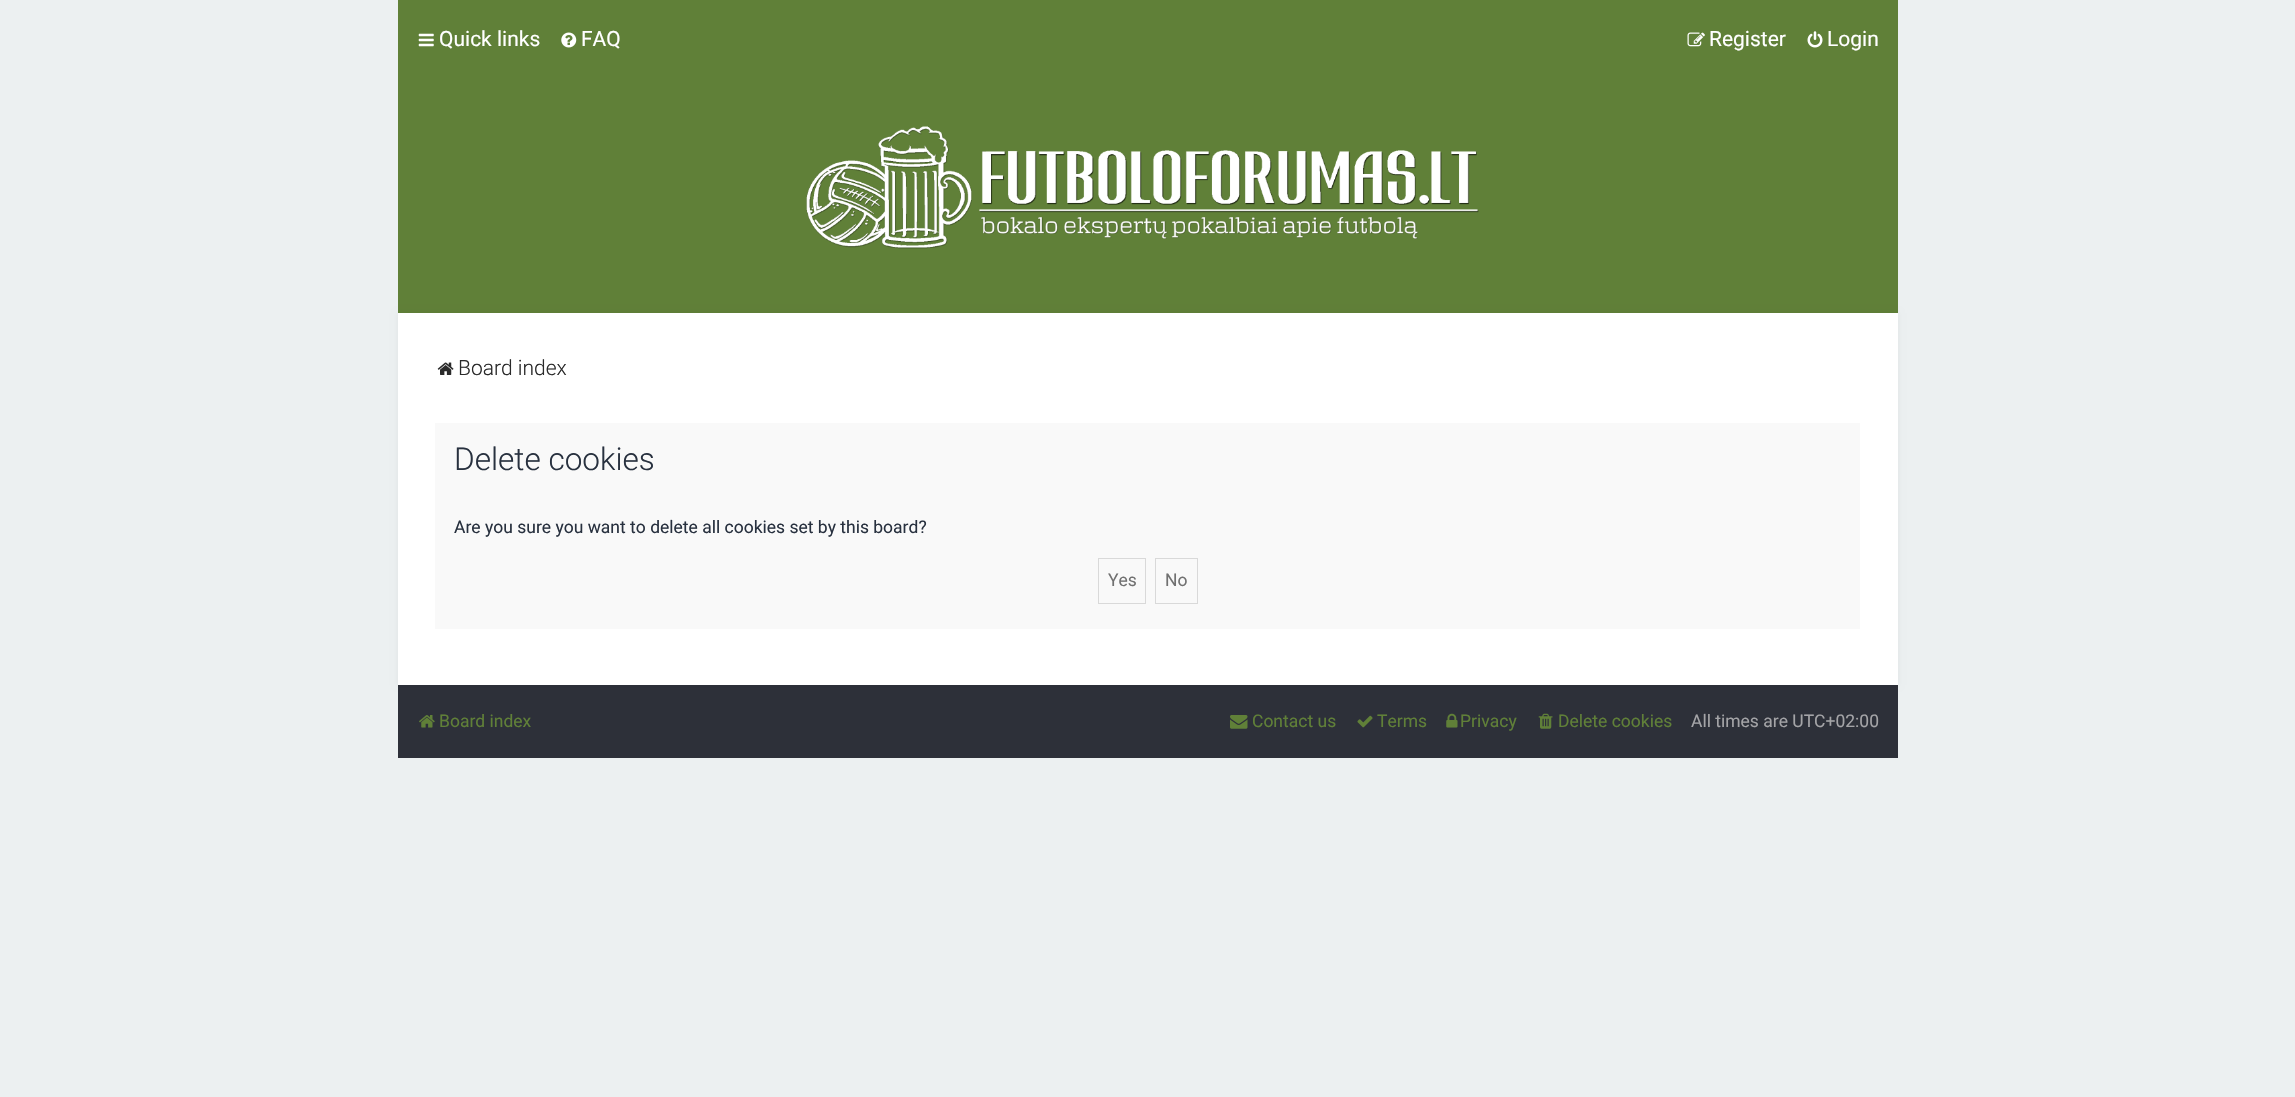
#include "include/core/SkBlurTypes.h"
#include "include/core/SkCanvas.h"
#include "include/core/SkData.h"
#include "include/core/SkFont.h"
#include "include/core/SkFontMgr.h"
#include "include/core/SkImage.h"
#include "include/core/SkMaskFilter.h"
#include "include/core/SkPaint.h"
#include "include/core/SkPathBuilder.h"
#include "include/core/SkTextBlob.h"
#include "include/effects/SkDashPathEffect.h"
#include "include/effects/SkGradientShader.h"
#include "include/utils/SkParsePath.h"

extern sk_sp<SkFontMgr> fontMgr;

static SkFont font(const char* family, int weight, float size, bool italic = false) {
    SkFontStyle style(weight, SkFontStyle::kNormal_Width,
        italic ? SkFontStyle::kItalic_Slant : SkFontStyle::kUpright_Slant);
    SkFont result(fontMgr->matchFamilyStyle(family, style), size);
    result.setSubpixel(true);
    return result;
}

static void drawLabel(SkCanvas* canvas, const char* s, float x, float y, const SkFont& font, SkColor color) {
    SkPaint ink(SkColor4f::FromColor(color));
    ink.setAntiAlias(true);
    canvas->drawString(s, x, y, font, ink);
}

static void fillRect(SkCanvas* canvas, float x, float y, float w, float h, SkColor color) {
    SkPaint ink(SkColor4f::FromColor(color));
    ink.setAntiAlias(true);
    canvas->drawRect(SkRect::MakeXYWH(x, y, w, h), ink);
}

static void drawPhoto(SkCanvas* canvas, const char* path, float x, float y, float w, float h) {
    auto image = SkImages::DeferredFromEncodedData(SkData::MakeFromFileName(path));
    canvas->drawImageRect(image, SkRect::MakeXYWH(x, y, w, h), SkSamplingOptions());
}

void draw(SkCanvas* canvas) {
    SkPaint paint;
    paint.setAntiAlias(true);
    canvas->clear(0xFFECF0F1);
    fillRect(canvas, 398, 0, 1500, 313, 0xFF608038);
    drawPhoto(canvas, "assets/img1.png", 806, 126, 673, 123);
    drawPhoto(canvas, "assets/img2.png", 418, 33, 16, 14);
    SkFont font1 = font("Roboto", 400, 21);
    drawLabel(canvas, "Quick links", 439, 46, font1, 0xFFFFFFFF);
    drawPhoto(canvas, "assets/img3.png", 561, 32, 16, 16);
    drawLabel(canvas, "FAQ", 581, 46, font1, 0xFFFFFFFF);
    drawPhoto(canvas, "assets/img4.png", 1687, 32, 18, 15);
    drawLabel(canvas, "Register", 1709, 46, font1, 0xFFFFFFFF);
    drawPhoto(canvas, "assets/img5.png", 1807, 31, 16, 17);
    drawLabel(canvas, "Login", 1827, 46, font1, 0xFFFFFFFF);
    fillRect(canvas, 398, 685, 1500, 73, 0xFF2D3039);
    paint.setColor(0x0D000000);
    paint.setMaskFilter(SkMaskFilter::MakeBlur(kNormal_SkBlurStyle, 3));
    canvas->drawRect(SkRect::MakeXYWH(398, 313, 1500, 372), paint);
    paint.setMaskFilter(nullptr);
    fillRect(canvas, 398, 313, 1500, 372, 0xFFFFFFFF);
    drawPhoto(canvas, "assets/img6.png", 437, 362, 17, 13);
    SkFont font2 = font("Roboto", 300, 21);
    drawLabel(canvas, "Board index", 458, 375, font2, 0xFF2A2A2A);
    fillRect(canvas, 435, 423, 1425, 206, 0xFFF9F9F9);
    SkFont font3 = font("Roboto", 300, 31.5f);
    drawLabel(canvas, "Delete cookies", 454, 470, font3, 0xFF28313F);
    SkFont font4 = font("Roboto", 400, 17.5f);
    drawLabel(canvas, "Are you sure you want to delete all cookies set by this board?", 454, 533, font4, 0xFF28313F);
    paint.setStroke(true);
    paint.setStrokeWidth(1);
    paint.setColor(0xFFD9D9D9);
    canvas->drawRect(SkRect::MakeXYWH(1098.5f, 558.5f, 47, 45), paint);
    drawLabel(canvas, "Yes", 1108, 586, font4, 0xFF717171);
    canvas->drawRect(SkRect::MakeXYWH(1155.5f, 558.5f, 42, 45), paint);
    drawLabel(canvas, "No", 1165, 586, font4, 0xFF717171);
    drawPhoto(canvas, "assets/img7.png", 419, 715, 16, 13);
    drawLabel(canvas, "Board index", 439, 727, font4, 0xFF608038);
    drawPhoto(canvas, "assets/img8.png", 1230, 715, 18, 14);
    drawLabel(canvas, "Contact us", 1252, 727, font4, 0xFF608038);
    drawPhoto(canvas, "assets/img9.png", 1357, 715, 16, 13);
    drawLabel(canvas, "Terms", 1377, 727, font4, 0xFF608038);
    drawPhoto(canvas, "assets/img10.png", 1446, 713, 12, 15);
    drawLabel(canvas, "Privacy", 1460, 727, font4, 0xFF608038);
    drawPhoto(canvas, "assets/img11.png", 1538, 713, 15, 16);
    drawLabel(canvas, "Delete cookies", 1558, 727, font4, 0xFF608038);
    drawLabel(canvas, "All times are UTC+02:00", 1691, 727, font4, 0xFFA4A4A7);
}
